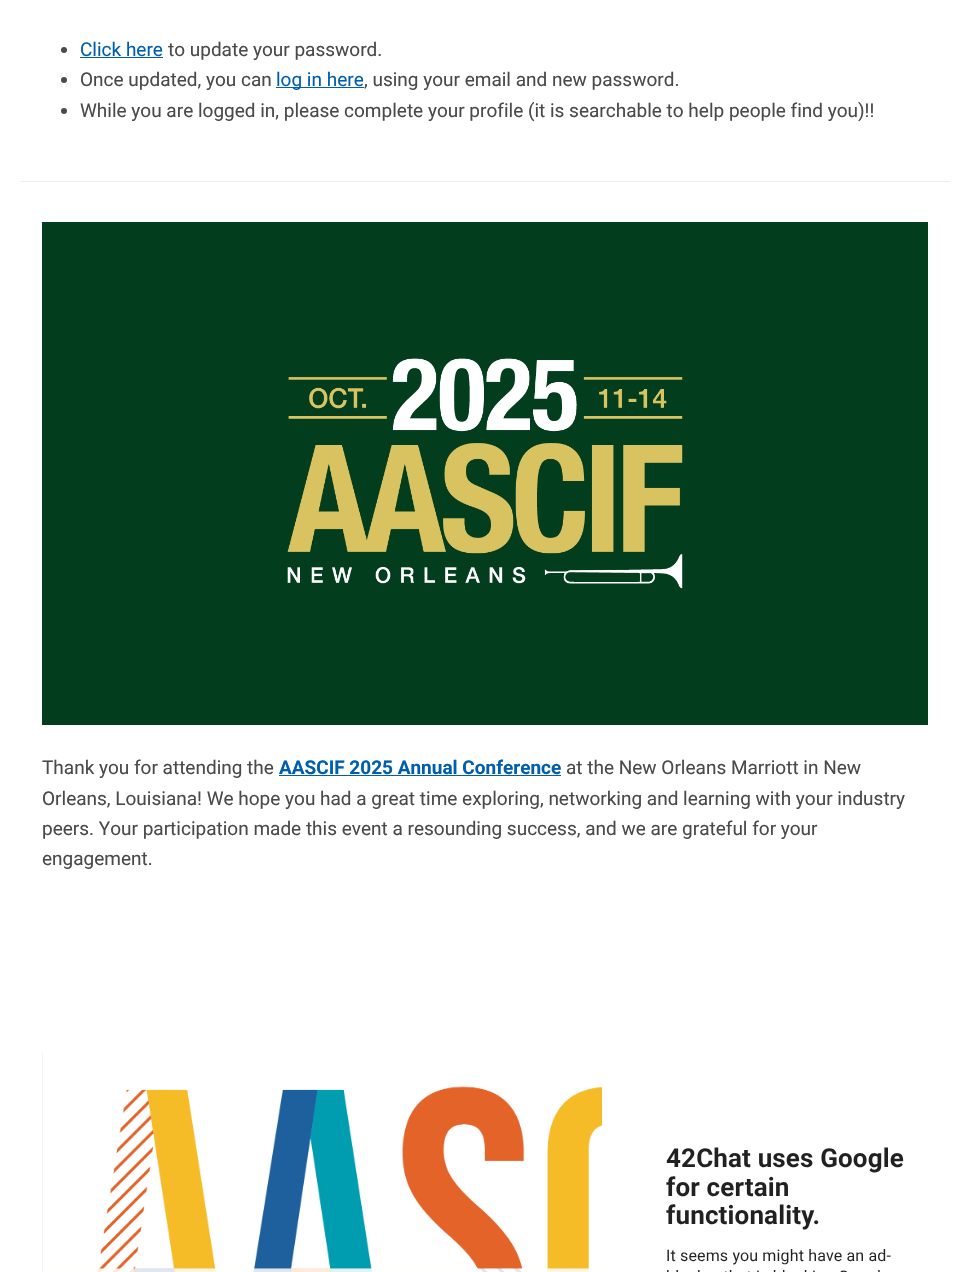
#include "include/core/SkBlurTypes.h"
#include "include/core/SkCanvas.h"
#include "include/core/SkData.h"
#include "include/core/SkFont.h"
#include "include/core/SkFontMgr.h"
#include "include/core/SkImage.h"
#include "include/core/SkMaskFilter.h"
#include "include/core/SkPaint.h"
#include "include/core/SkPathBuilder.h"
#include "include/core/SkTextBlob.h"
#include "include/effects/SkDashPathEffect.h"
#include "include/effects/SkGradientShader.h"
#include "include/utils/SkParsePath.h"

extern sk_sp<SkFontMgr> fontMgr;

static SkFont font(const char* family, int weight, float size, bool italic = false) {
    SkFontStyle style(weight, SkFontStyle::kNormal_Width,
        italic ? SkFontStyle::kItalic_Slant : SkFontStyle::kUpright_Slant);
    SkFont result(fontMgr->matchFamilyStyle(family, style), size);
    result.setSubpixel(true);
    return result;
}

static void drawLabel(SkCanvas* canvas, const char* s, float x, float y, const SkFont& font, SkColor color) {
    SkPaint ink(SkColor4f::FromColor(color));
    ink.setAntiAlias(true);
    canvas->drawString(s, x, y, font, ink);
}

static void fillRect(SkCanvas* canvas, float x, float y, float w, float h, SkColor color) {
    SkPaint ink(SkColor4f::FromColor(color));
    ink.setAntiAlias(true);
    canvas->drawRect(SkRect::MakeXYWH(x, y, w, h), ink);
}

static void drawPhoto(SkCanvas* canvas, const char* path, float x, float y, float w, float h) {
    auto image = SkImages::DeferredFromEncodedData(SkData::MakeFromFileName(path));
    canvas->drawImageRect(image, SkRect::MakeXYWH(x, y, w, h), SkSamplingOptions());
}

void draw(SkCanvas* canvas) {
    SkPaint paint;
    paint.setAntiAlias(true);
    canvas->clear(0xFFFFFFFF);
    fillRect(canvas, 20, 181, 930, 1, 0xFFEEEEEE);
    paint.setColor(0xFF4A4A4A);
    canvas->drawCircle(64, 50, 3, paint);
    SkFont font1 = font("Roboto", 400, 19);
    drawLabel(canvas, "Click here", 80, 56, font1, 0xFF005FAD);
    fillRect(canvas, 80, 57, 83, 1, 0xFF005FAD);
    drawLabel(canvas, "to update your password.", 168, 56, font1, 0xFF4A4A4A);
    canvas->drawCircle(64, 80, 3, paint);
    drawLabel(canvas, "Once updated, you can", 80, 86, font1, 0xFF4A4A4A);
    fillRect(canvas, 276, 87, 88, 1, 0xFF005FAD);
    drawLabel(canvas, "log in here", 276, 86, font1, 0xFF005FAD);
    drawLabel(canvas, ", using your email and new password.", 364, 86, font1, 0xFF4A4A4A);
    canvas->drawCircle(64, 111, 3, paint);
    drawLabel(canvas, "While you are logged in, please complete your profile (it is searchable to help people find you)!!", 80, 117, font1, 0xFF4A4A4A);
    drawPhoto(canvas, "assets/img1.png", 42, 222, 886, 503);
    drawLabel(canvas, "Thank you for attending the", 42, 774, font1, 0xFF4A4A4A);
    SkFont font2 = font("Roboto", 700, 19);
    drawLabel(canvas, "AASCIF 2025 Annual Conference", 279, 774, font2, 0xFF005FAD);
    fillRect(canvas, 279, 775, 282, 1, 0xFF005FAD);
    drawLabel(canvas, "at the New Orleans Marriott in New", 566, 774, font1, 0xFF4A4A4A);
    drawLabel(canvas, "Orleans, Louisiana! We hope you had a great time exploring, networking and learning with your industry", 42, 805, font1, 0xFF4A4A4A);
    drawLabel(canvas, "peers. Your participation made this event a resounding success, and we are grateful for your", 42, 835, font1, 0xFF4A4A4A);
    drawLabel(canvas, "engagement.", 42, 865, font1, 0xFF4A4A4A);
    drawPhoto(canvas, "assets/img2.png", 42, 1052, 842, 220);
    drawPhoto(canvas, "assets/img3.png", 602, 1086, 302, 186);
}
